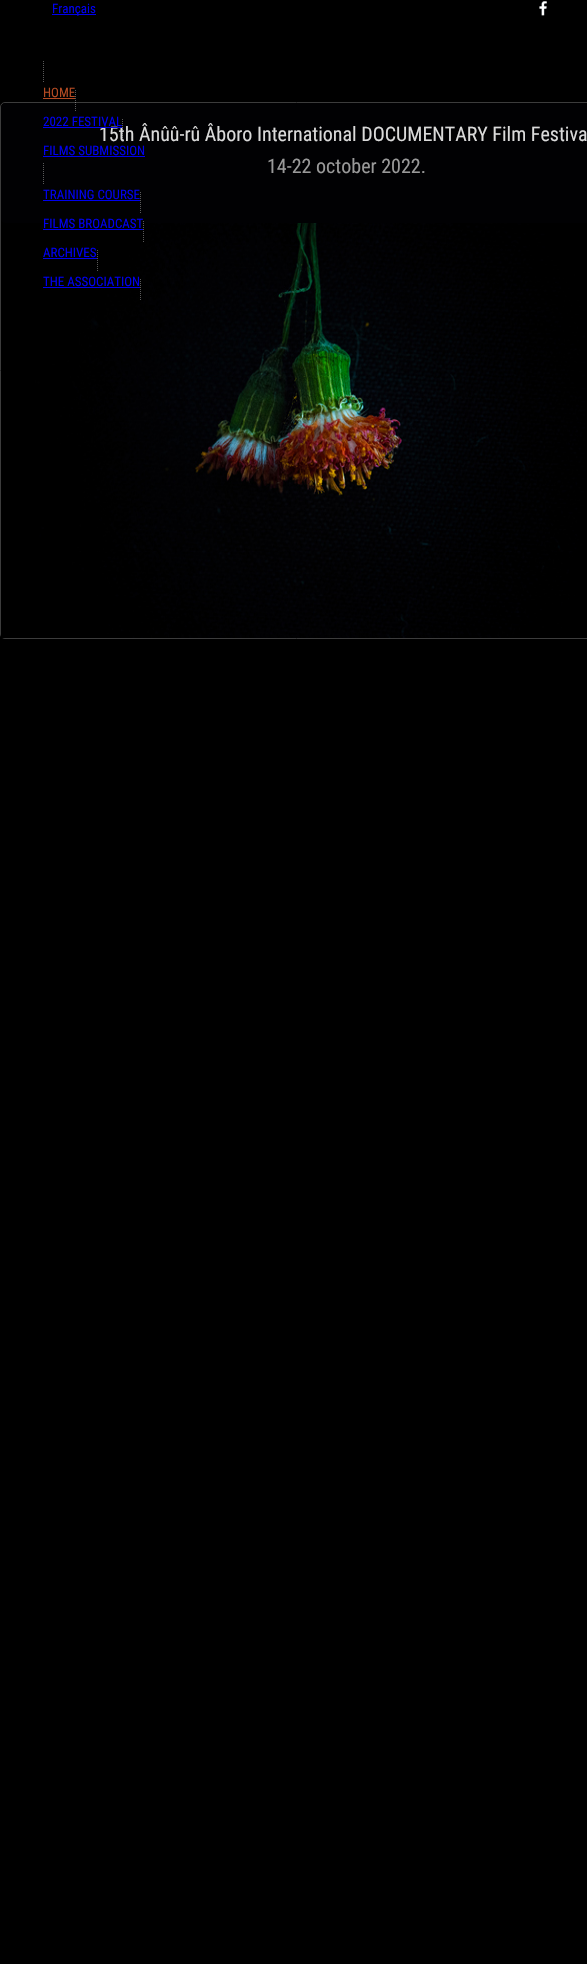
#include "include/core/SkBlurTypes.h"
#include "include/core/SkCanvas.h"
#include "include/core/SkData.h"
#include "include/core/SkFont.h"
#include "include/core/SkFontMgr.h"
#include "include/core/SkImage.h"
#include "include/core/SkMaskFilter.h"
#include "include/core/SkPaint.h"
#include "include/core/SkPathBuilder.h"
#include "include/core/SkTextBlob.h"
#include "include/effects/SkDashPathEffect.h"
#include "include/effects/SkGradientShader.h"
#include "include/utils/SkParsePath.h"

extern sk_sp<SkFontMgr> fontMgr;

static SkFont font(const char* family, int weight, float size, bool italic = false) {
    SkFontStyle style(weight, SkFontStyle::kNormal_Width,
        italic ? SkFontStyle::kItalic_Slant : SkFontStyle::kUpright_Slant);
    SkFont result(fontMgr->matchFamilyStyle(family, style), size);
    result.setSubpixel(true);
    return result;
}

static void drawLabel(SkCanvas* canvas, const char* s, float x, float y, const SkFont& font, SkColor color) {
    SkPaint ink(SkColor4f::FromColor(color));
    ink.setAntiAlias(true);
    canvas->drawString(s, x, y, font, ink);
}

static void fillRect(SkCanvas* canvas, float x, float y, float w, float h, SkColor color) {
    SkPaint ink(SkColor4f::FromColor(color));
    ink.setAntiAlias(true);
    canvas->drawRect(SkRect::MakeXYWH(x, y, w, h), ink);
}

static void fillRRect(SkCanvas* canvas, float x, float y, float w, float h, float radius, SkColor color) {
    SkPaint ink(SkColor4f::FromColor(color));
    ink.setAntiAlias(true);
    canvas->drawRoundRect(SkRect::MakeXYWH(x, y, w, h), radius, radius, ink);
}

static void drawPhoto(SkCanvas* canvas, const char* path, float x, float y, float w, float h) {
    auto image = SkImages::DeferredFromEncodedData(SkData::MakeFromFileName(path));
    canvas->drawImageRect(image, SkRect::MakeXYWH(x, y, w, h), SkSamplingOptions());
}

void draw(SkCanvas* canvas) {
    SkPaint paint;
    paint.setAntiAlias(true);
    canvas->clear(0xFF000000);
    fillRect(canvas, 52, 14, 44, 1, 0xFF0000EE);
    SkFont font1 = font("Roboto Condensed", 400, 13);
    drawLabel(canvas, "Français", 52, 13, font1, 0xFF0000EE);
    drawPhoto(canvas, "assets/img1.png", 539, 1, 8, 15);
    drawPhoto(canvas, "assets/img2.png", 43, 61, 1, 21);
    drawLabel(canvas, "HOME", 43, 97, font1, 0xFFB34A22);
    fillRect(canvas, 43, 98, 32, 1, 0xFFB34A22);
    paint.setStroke(true);
    paint.setStrokeWidth(1);
    paint.setColor(0xFF3C3C3C);
    canvas->drawRoundRect(SkRect::MakeXYWH(0.5f, 102.5f, 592, 536), 4.5f, 4.5f, paint);
    fillRRect(canvas, 1, 103, 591, 120, 5, 0xFF010103);
    drawPhoto(canvas, "assets/img3.png", 75, 90, 1, 21);
    SkFont font2 = font("Roboto Condensed", 400, 20);
    drawLabel(canvas, "15th Ânûû-rû Âboro International DOCUMENTARY Film Festiva", 99, 141, font2, 0xFFDADADA);
    drawLabel(canvas, "2022 FESTIVAL", 43, 126, font1, 0xFF0000EE);
    fillRect(canvas, 43, 127, 79, 1, 0xFF0000EE);
    drawPhoto(canvas, "assets/img4.png", 122, 119, 1, 21);
    drawLabel(canvas, "FILMS SUBMISSION", 43, 155, font1, 0xFF0000EE);
    fillRect(canvas, 43, 156, 102, 1, 0xFF0000EE);
    drawPhoto(canvas, "assets/img5.png", 43, 163, 1, 21);
    drawLabel(canvas, "TRAINING COURSE", 43, 199, font1, 0xFF0000EE);
    fillRect(canvas, 43, 200, 97, 1, 0xFF0000EE);
    drawPhoto(canvas, "assets/img5.png", 140, 192, 1, 21);
    drawPhoto(canvas, "assets/img8.png", 1, 223, 584, 415);
    drawLabel(canvas, "FILMS BROADCAST", 43, 228, font1, 0xFF0000EE);
    fillRect(canvas, 43, 229, 100, 1, 0xFF0000EE);
    drawPhoto(canvas, "assets/img6.png", 143, 221, 1, 21);
    drawLabel(canvas, "ARCHIVES", 43, 257, font1, 0xFF0000EE);
    fillRect(canvas, 43, 258, 54, 1, 0xFF0000EE);
    drawPhoto(canvas, "assets/img2.png", 97, 250, 1, 21);
    drawLabel(canvas, "THE ASSOCIATION", 43, 286, font1, 0xFF0000EE);
    fillRect(canvas, 43, 287, 97, 1, 0xFF0000EE);
    drawPhoto(canvas, "assets/img7.png", 140, 279, 1, 21);
    drawLabel(canvas, "14-22 october 2022.", 267, 173, font2, 0xFF999999);
}
